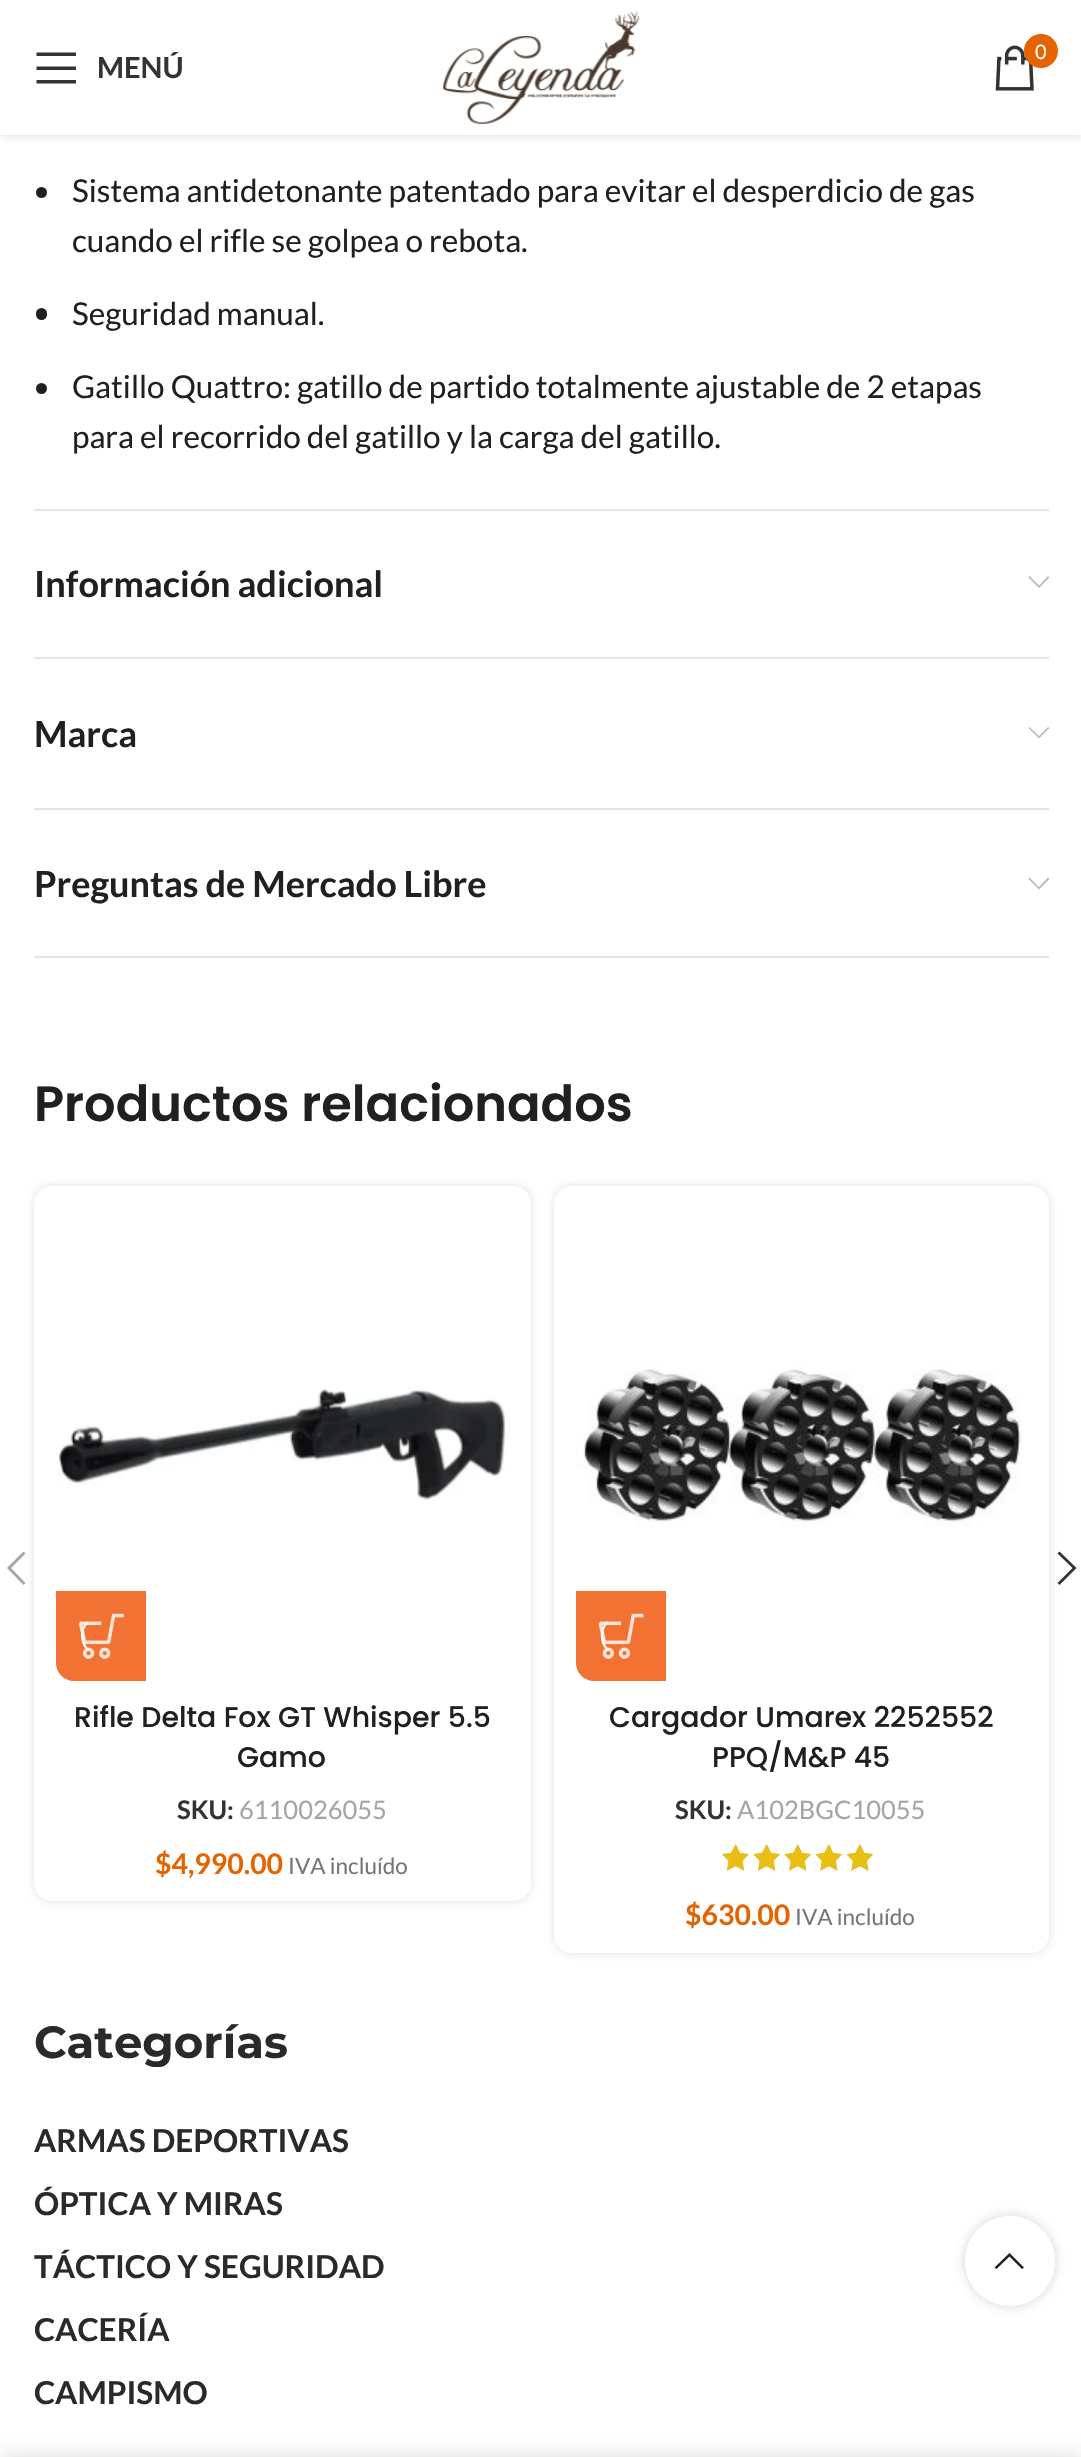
#include "include/core/SkBlurTypes.h"
#include "include/core/SkCanvas.h"
#include "include/core/SkData.h"
#include "include/core/SkFont.h"
#include "include/core/SkFontMgr.h"
#include "include/core/SkImage.h"
#include "include/core/SkMaskFilter.h"
#include "include/core/SkPaint.h"
#include "include/core/SkPathBuilder.h"
#include "include/core/SkTextBlob.h"
#include "include/effects/SkDashPathEffect.h"
#include "include/effects/SkGradientShader.h"
#include "include/utils/SkParsePath.h"

extern sk_sp<SkFontMgr> fontMgr;

static SkFont font(const char* family, int weight, float size, bool italic = false) {
    SkFontStyle style(weight, SkFontStyle::kNormal_Width,
        italic ? SkFontStyle::kItalic_Slant : SkFontStyle::kUpright_Slant);
    SkFont result(fontMgr->matchFamilyStyle(family, style), size);
    result.setSubpixel(true);
    return result;
}

static void drawLabel(SkCanvas* canvas, const char* s, float x, float y, const SkFont& font, SkColor color) {
    SkPaint ink(SkColor4f::FromColor(color));
    ink.setAntiAlias(true);
    canvas->drawString(s, x, y, font, ink);
}

static void fillRect(SkCanvas* canvas, float x, float y, float w, float h, SkColor color) {
    SkPaint ink(SkColor4f::FromColor(color));
    ink.setAntiAlias(true);
    canvas->drawRect(SkRect::MakeXYWH(x, y, w, h), ink);
}

static void fillRRect(SkCanvas* canvas, float x, float y, float w, float h, float radius, SkColor color) {
    SkPaint ink(SkColor4f::FromColor(color));
    ink.setAntiAlias(true);
    canvas->drawRoundRect(SkRect::MakeXYWH(x, y, w, h), radius, radius, ink);
}

static void drawPhoto(SkCanvas* canvas, const char* path, float x, float y, float w, float h) {
    auto image = SkImages::DeferredFromEncodedData(SkData::MakeFromFileName(path));
    canvas->drawImageRect(image, SkRect::MakeXYWH(x, y, w, h), SkSamplingOptions());
}

static SkPath parsePath(const char* data, bool evenOdd = false) {
    SkPath result = *SkParsePath::FromSVGString(data);
    if (evenOdd) result.setFillType(SkPathFillType::kEvenOdd);
    return result;
}

void draw(SkCanvas* canvas) {
    SkPaint paint;
    paint.setAntiAlias(true);
    canvas->clear(0xFFFFFFFF);
    paint.setColor(0x1A000000);
    paint.setMaskFilter(SkMaskFilter::MakeBlur(kNormal_SkBlurStyle, 3.5f));
    canvas->drawRect(SkRect::MakeXYWH(0, 2, 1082, 135), paint);
    paint.setMaskFilter(nullptr);
    fillRect(canvas, 0, 0, 1081, 135, 0xFFFFFFFF);
    paint.setColor(0xFF333333);
    canvas->drawPath(parsePath("M36.5 56H76V52.5H36.5ZM36.5 70H76V66.5H36.5ZM36.5 83.5H76V80H36.5Z"), paint);
    SkFont font1 = font("Lato", 700, 29);
    drawLabel(canvas, "MENÚ", 97, 78, font1, 0xFF333333);
    drawPhoto(canvas, "assets/img1.png", 443, 11, 197, 113);
    drawPhoto(canvas, "assets/img2.png", 995, 45, 39, 46);
    paint.setColor(0xFFE56300);
    canvas->drawCircle(1041, 51, 17, paint);
    SkFont font2 = font("Lato", 400, 20);
    drawLabel(canvas, "0", 1035, 59, font2, 0xFFFFFFFF);
    fillRect(canvas, 34, 509, 1015, 2, 0xFFE4E4E4);
    paint.setColor(0xFF202020);
    canvas->drawCircle(41.5f, 192.5f, 5.5f, paint);
    SkFont font3 = font("Lato", 400, 31.5f);
    drawLabel(canvas, "Sistema antidetonante patentado para evitar el desperdicio de gas", 72, 202, font3, 0xFF202020);
    drawLabel(canvas, "cuando el rifle se golpea o rebota.", 72, 252, font3, 0xFF202020);
    fillRRect(canvas, 36, 308, 11, 12, 5.5f, 0xFF202020);
    drawLabel(canvas, "Seguridad manual.", 72, 325, font3, 0xFF202020);
    canvas->drawCircle(41.5f, 388.5f, 5.5f, paint);
    drawLabel(canvas, "Gatillo Quattro: gatillo de partido totalmente ajustable de 2 etapas", 72, 398, font3, 0xFF202020);
    drawLabel(canvas, "para el recorrido del gatillo y la carga del gatillo.", 72, 448, font3, 0xFF202020);
    fillRect(canvas, 34, 657, 1015, 2, 0xFFE4E4E4);
    SkFont font4 = font("Lato", 700, 36);
    drawLabel(canvas, "Información adicional", 34, 597, font4, 0xFF202020);
    paint.setColor(0xFFBBBBBB);
    canvas->drawPath(parsePath("M1048 576L1039 585.5L1029.5 576L1028.5 577.5L1039 588L1049.5 577.5Z"), paint);
    fillRect(canvas, 34, 808, 1015, 2, 0xFFE4E4E4);
    drawLabel(canvas, "Marca", 34, 747, font4, 0xFF202020);
    canvas->drawPath(parsePath("M1048 727L1039 736L1029.5 727L1028.5 728L1039 738.5L1049.5 728Z"), paint);
    fillRect(canvas, 34, 956, 1015, 2, 0xFFE4E4E4);
    drawLabel(canvas, "Preguntas de Mercado Libre", 34, 897, font4, 0xFF202020);
    canvas->drawPath(parsePath("M1048 877.5L1039 887L1029.5 877.5L1028.5 879L1039 889.5L1049.5 879Z"), paint);
    SkFont font5 = font("Poppins", 600, 49.5f);
    drawLabel(canvas, "Productos relacionados", 34, 1121, font5, 0xFF202020);
    canvas->save();
    canvas->clipPath(parsePath("M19 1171H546V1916H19ZM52 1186H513C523 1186 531 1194 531 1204V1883C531 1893 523 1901 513 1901H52C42 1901 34 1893 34 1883V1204C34 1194 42 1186 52 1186Z", true), true);
    paint.setColor(0x1F000000);
    paint.setMaskFilter(SkMaskFilter::MakeBlur(kNormal_SkBlurStyle, 4.5f));
    canvas->drawRoundRect(SkRect::MakeXYWH(34, 1186, 497, 715), 18, 18, paint);
    paint.setMaskFilter(nullptr);
    canvas->restore();
    paint.setColor(0xFFA5A5A5);
    canvas->drawPath(parsePath("M25.5 1553.5L23.5 1551.5L7 1568L23.5 1585L25.5 1583L11 1568Z"), paint);
    canvas->save();
    canvas->clipPath(parsePath("M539 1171H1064V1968H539ZM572 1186H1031C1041 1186 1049 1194 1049 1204V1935C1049 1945 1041 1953 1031 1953H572C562 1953 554 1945 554 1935V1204C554 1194 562 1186 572 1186Z", true), true);
    paint.setColor(0x1F000000);
    paint.setMaskFilter(SkMaskFilter::MakeBlur(kNormal_SkBlurStyle, 4.5f));
    canvas->drawRoundRect(SkRect::MakeXYWH(554, 1186, 495, 767), 18, 18, paint);
    paint.setMaskFilter(nullptr);
    canvas->restore();
    paint.setColor(0xFF333333);
    canvas->drawPath(parsePath("M1057.5 1553.5L1072.5 1568L1057.5 1583L1059.5 1585L1076.5 1568L1059.5 1551.5Z"), paint);
    drawPhoto(canvas, "assets/img3.png", 59, 1389, 449, 111);
    paint.setColor(0xFFF17233);
    canvas->drawPath(parsePath("M56 1591H146V1681H74C64 1681 56 1673 56 1663Z"), paint);
    drawPhoto(canvas, "assets/img4.png", 78, 1613, 46, 46);
    paint.setStroke(true);
    paint.setStrokeWidth(2.2f);
    paint.setColor(0xFFFFFFFF);
    canvas->drawPath(parsePath("M87.5 1649.5C80.5 1642 80.5 1629.5 87.5 1622"), paint);
    SkFont font6 = font("Poppins", 500, 28.4f);
    drawLabel(canvas, "Rifle Delta Fox GT Whisper 5.5", 74, 1727, font6, 0xFF202020);
    drawLabel(canvas, "Gamo", 237, 1767, font6, 0xFF202020);
    SkFont font7 = font("Lato", 700, 25.5f);
    drawLabel(canvas, "SKU:", 177, 1819, font7, 0xFF333333);
    SkFont font8 = font("Lato", 400, 25.5f);
    drawLabel(canvas, "6110026055", 239, 1819, font8, 0xFFA5A5A5);
    SkFont font9 = font("Lato", 700, 28.4f);
    drawLabel(canvas, "$4,990.00", 155, 1874, font9, 0xFFE56300);
    SkFont font10 = font("Lato", 400, 22.5f);
    drawLabel(canvas, "IVA incluído", 288, 1874, font10, 0xFF767676);
    drawPhoto(canvas, "assets/img5.png", 576, 1363, 445, 164);
    paint.setStroke(false);
    paint.setColor(0xFFF17233);
    canvas->drawPath(parsePath("M576 1591H666V1681H594C584 1681 576 1673 576 1663Z"), paint);
    drawPhoto(canvas, "assets/img6.png", 598, 1613, 46, 46);
    paint.setStroke(true);
    paint.setColor(0xFFFFFFFF);
    canvas->drawPath(parsePath("M607.5 1649.5C600 1642 600 1629.5 607.5 1622"), paint);
    drawLabel(canvas, "Cargador Umarex 2252552", 609, 1727, font6, 0xFF202020);
    drawLabel(canvas, "PPQ/M&P 45", 712, 1767, font6, 0xFF202020);
    drawLabel(canvas, "SKU:", 675, 1819, font7, 0xFF333333);
    drawLabel(canvas, "A102BGC10055", 737, 1819, font8, 0xFFA5A5A5);
    drawPhoto(canvas, "assets/img7.png", 722, 1844, 151, 27);
    drawPhoto(canvas, "assets/img8.png", 722, 1845, 151, 26);
    drawLabel(canvas, "$630.00", 685, 1925, font9, 0xFFE56300);
    drawLabel(canvas, "IVA incluído", 795, 1925, font10, 0xFF767676);
    SkFont font11 = font("Montserrat", 700, 45);
    drawLabel(canvas, "Categorías", 34, 2058, font11, 0xFF2A2A2A);
    SkFont font12 = font("Lato", 700, 31.5f);
    drawLabel(canvas, "ARMAS DEPORTIVAS", 34, 2152, font12, 0xFF2A2A2A);
    drawLabel(canvas, "ÓPTICA Y MIRAS", 34, 2215, font12, 0xFF2A2A2A);
    drawLabel(canvas, "TÁCTICO Y SEGURIDAD", 34, 2278, font12, 0xFF2A2A2A);
    drawLabel(canvas, "CACERÍA", 34, 2341, font12, 0xFF2A2A2A);
    drawLabel(canvas, "CAMPISMO", 34, 2404, font12, 0xFF2A2A2A);
    canvas->save();
    canvas->clipPath(parsePath("M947 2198H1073V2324H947ZM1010 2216C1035 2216 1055 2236 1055 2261C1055 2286 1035 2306 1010 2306C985 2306 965 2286 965 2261C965 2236 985 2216 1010 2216Z", true), true);
    paint.setStroke(false);
    paint.setColor(0x2B000000);
    paint.setMaskFilter(SkMaskFilter::MakeBlur(kNormal_SkBlurStyle, 5.5f));
    canvas->drawRoundRect(SkRect::MakeXYWH(965, 2216, 90, 90), 45, 45, paint);
    paint.setMaskFilter(nullptr);
    canvas->restore();
    paint.setColor(0xE6FFFFFF);
    canvas->drawCircle(1010, 2261, 45, paint);
    paint.setColor(0xFF202020);
    canvas->drawPath(parsePath("M1022 2269L1024 2267.5L1009.5 2253L994.5 2267.5L996.5 2269L1009.5 2256.5Z"), paint);
    paint.setColor(0x24000000);
    paint.setMaskFilter(SkMaskFilter::MakeBlur(kNormal_SkBlurStyle, 10));
    canvas->drawRect(SkRect::MakeXYWH(0, 2457, 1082, 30), paint);
    paint.setMaskFilter(nullptr);
}
